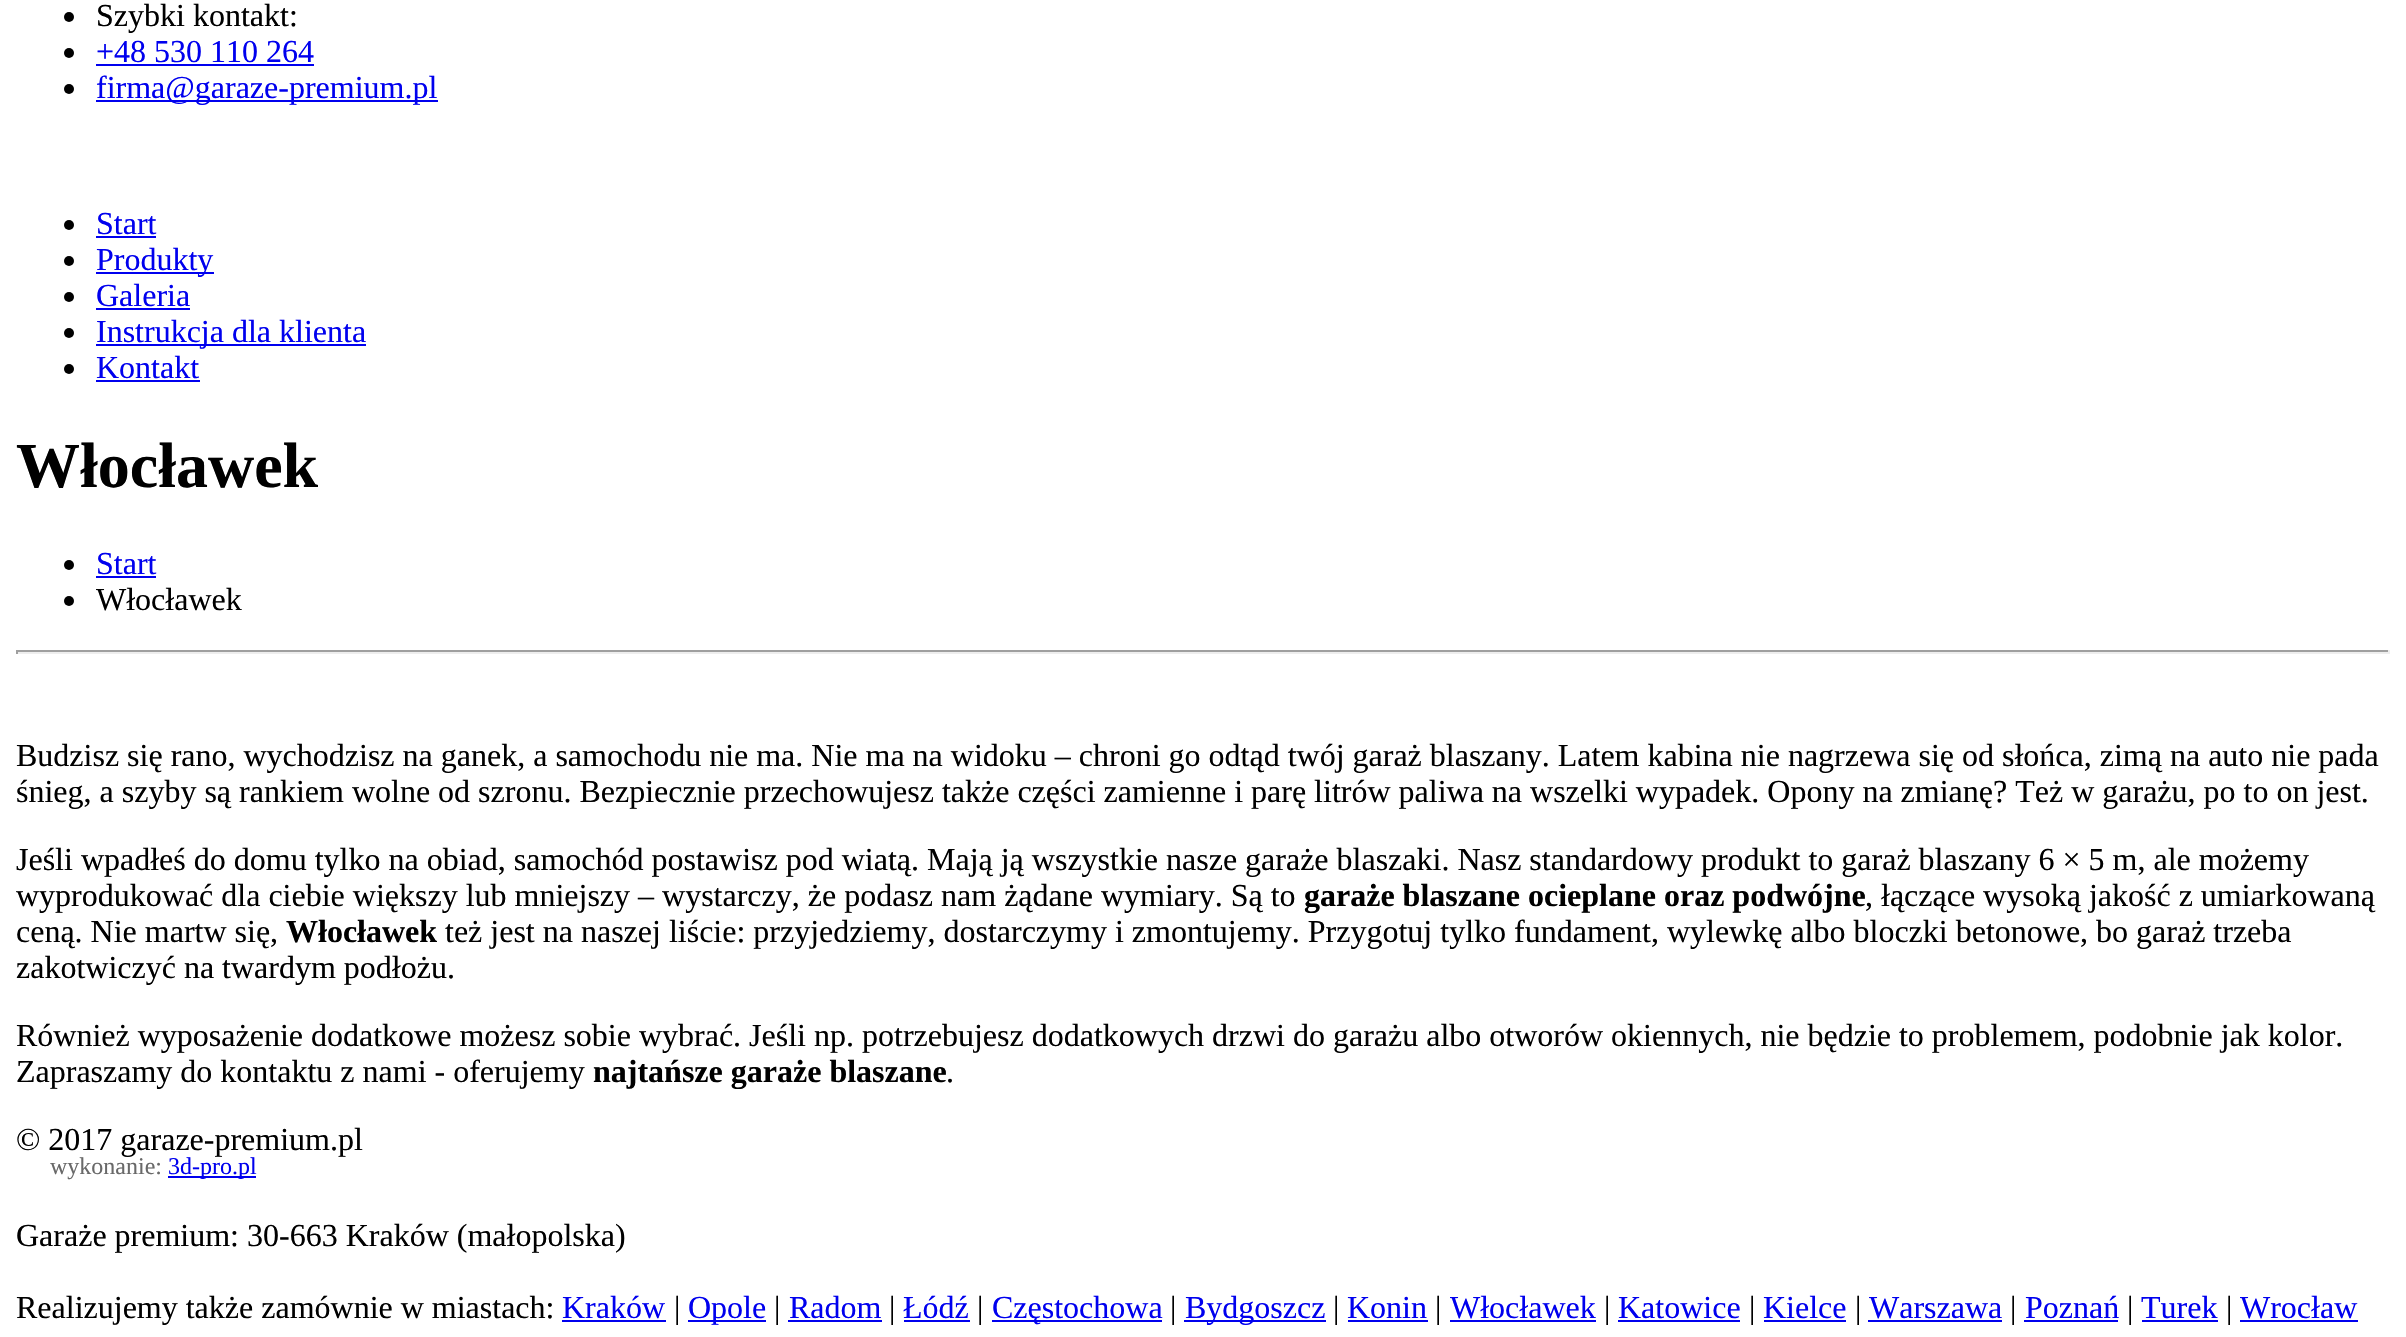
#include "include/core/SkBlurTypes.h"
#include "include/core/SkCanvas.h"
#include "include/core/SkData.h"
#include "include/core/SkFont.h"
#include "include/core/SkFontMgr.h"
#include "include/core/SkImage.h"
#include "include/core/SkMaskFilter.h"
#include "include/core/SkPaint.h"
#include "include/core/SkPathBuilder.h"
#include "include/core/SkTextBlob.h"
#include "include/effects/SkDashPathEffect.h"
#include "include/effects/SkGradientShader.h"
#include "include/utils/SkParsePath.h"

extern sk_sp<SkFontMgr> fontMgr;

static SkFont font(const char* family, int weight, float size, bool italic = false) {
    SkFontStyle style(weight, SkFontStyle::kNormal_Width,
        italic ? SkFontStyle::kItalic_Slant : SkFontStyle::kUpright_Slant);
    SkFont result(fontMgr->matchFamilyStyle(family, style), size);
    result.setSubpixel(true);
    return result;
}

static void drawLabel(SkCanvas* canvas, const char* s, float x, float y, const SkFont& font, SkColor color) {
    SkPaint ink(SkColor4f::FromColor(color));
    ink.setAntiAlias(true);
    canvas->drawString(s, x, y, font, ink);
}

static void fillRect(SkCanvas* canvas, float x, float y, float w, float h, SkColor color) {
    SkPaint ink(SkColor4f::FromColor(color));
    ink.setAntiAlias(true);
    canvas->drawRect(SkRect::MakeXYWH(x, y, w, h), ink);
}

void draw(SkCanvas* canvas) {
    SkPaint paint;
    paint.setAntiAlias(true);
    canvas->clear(0xFFFFFFFF);
    paint.setColor(0xFF000000);
    canvas->drawCircle(69, 17, 5, paint);
    SkFont font1 = font("Liberation Serif", 400, 32);
    drawLabel(canvas, "Szybki kontakt:", 96, 26, font1, 0xFF000000);
    canvas->drawCircle(69, 53, 5, paint);
    drawLabel(canvas, "+48 530 110 264", 96, 62, font1, 0xFF0000EE);
    fillRect(canvas, 96, 64, 218, 2, 0xFF0000EE);
    canvas->drawCircle(69, 89, 5, paint);
    fillRect(canvas, 96, 100, 342, 2, 0xFF0000EE);
    drawLabel(canvas, "firma@garaze-premium.pl", 96, 98, font1, 0xFF0000EE);
    canvas->drawCircle(69, 225, 5, paint);
    drawLabel(canvas, "Start", 96, 234, font1, 0xFF0000EE);
    fillRect(canvas, 96, 236, 60, 2, 0xFF0000EE);
    canvas->drawCircle(69, 261, 5, paint);
    fillRect(canvas, 96, 272, 118, 2, 0xFF0000EE);
    drawLabel(canvas, "Produkty", 96, 270, font1, 0xFF0000EE);
    canvas->drawCircle(69, 297, 5, paint);
    drawLabel(canvas, "Galeria", 96, 306, font1, 0xFF0000EE);
    fillRect(canvas, 96, 308, 94, 2, 0xFF0000EE);
    canvas->drawCircle(69, 333, 5, paint);
    fillRect(canvas, 96, 344, 270, 2, 0xFF0000EE);
    drawLabel(canvas, "Instrukcja dla klienta", 96, 342, font1, 0xFF0000EE);
    canvas->drawCircle(69, 369, 5, paint);
    drawLabel(canvas, "Kontakt", 96, 378, font1, 0xFF0000EE);
    fillRect(canvas, 96, 380, 104, 2, 0xFF0000EE);
    SkFont font2 = font("Liberation Serif", 700, 64);
    drawLabel(canvas, "Włocławek", 16, 487, font2, 0xFF000000);
    canvas->drawCircle(69, 565, 5, paint);
    drawLabel(canvas, "Start", 96, 574, font1, 0xFF0000EE);
    fillRect(canvas, 96, 576, 60, 2, 0xFF0000EE);
    canvas->drawCircle(69, 601, 5, paint);
    drawLabel(canvas, "Włocławek", 96, 610, font1, 0xFF000000);
    fillRect(canvas, 16, 650, 2374, 2, 0xFF9F9F9F);
    fillRect(canvas, 2388, 650, 2, 4, 0xFFEEEEEE);
    fillRect(canvas, 16, 652, 2374, 2, 0xFFEEEEEE);
    fillRect(canvas, 16, 650, 2, 4, 0xFF9F9F9F);
    drawLabel(canvas, "Budzisz się rano, wychodzisz na ganek, a samochodu nie ma. Nie ma na widoku – chroni go odtąd twój garaż blaszany. Latem kabina nie nagrzewa się od słońca, zimą na auto nie pada", 16, 766, font1, 0xFF000000);
    drawLabel(canvas, "śnieg, a szyby są rankiem wolne od szronu. Bezpiecznie przechowujesz także części zamienne i parę litrów paliwa na wszelki wypadek. Opony na zmianę? Też w garażu, po to on jest.", 16, 802, font1, 0xFF000000);
    drawLabel(canvas, "Jeśli wpadłeś do domu tylko na obiad, samochód postawisz pod wiatą. Mają ją wszystkie nasze garaże blaszaki. Nasz standardowy produkt to garaż blaszany 6 × 5 m, ale możemy", 16, 870, font1, 0xFF000000);
    drawLabel(canvas, "wyprodukować dla ciebie większy lub mniejszy – wystarczy, że podasz nam żądane wymiary. Są to", 16, 906, font1, 0xFF000000);
    SkFont font3 = font("Liberation Serif", 700, 32);
    drawLabel(canvas, "garaże blaszane ocieplane oraz podwójne", 1304, 906, font3, 0xFF000000);
    drawLabel(canvas, ", łączące wysoką jakość z umiarkowaną", 1865, 906, font1, 0xFF000000);
    drawLabel(canvas, "ceną. Nie martw się,", 16, 942, font1, 0xFF000000);
    drawLabel(canvas, "Włocławek", 286, 942, font3, 0xFF000000);
    drawLabel(canvas, "też jest na naszej liście: przyjedziemy, dostarczymy i zmontujemy. Przygotuj tylko fundament, wylewkę albo bloczki betonowe, bo garaż trzeba", 445, 942, font1, 0xFF000000);
    drawLabel(canvas, "zakotwiczyć na twardym podłożu.", 16, 978, font1, 0xFF000000);
    drawLabel(canvas, "Również wyposażenie dodatkowe możesz sobie wybrać. Jeśli np. potrzebujesz dodatkowych drzwi do garażu albo otworów okiennych, nie będzie to problemem, podobnie jak kolor.", 16, 1046, font1, 0xFF000000);
    drawLabel(canvas, "Zapraszamy do kontaktu z nami - oferujemy", 16, 1082, font1, 0xFF000000);
    drawLabel(canvas, "najtańsze garaże blaszane", 593, 1082, font3, 0xFF000000);
    drawLabel(canvas, ".", 946, 1082, font1, 0xFF000000);
    drawLabel(canvas, "© 2017 garaze-premium.pl", 16, 1150, font1, 0xFF000000);
    SkFont font4 = font("Liberation Serif", 400, 24);
    drawLabel(canvas, "wykonanie:", 50, 1174, font4, 0xFF696969);
    fillRect(canvas, 168, 1176, 88, 2, 0xFF0000EE);
    drawLabel(canvas, "3d-pro.pl", 168, 1174, font4, 0xFF0000EE);
    drawLabel(canvas, "Garaże premium: 30-663 Kraków (małopolska)", 16, 1246, font1, 0xFF000000);
    drawLabel(canvas, "Realizujemy także zamównie w miastach:", 16, 1318, font1, 0xFF000000);
    drawLabel(canvas, "Kraków", 562, 1318, font1, 0xFF0000EE);
    fillRect(canvas, 562, 1320, 104, 2, 0xFF0000EE);
    drawLabel(canvas, "|", 674, 1318, font1, 0xFF000000);
    fillRect(canvas, 688, 1320, 78, 2, 0xFF0000EE);
    drawLabel(canvas, "Opole", 688, 1318, font1, 0xFF0000EE);
    drawLabel(canvas, "|", 774, 1318, font1, 0xFF000000);
    drawLabel(canvas, "Radom", 789, 1318, font1, 0xFF0000EE);
    fillRect(canvas, 788, 1320, 94, 2, 0xFF0000EE);
    drawLabel(canvas, "|", 889, 1318, font1, 0xFF000000);
    drawLabel(canvas, "Łódź", 903, 1318, font1, 0xFF0000EE);
    fillRect(canvas, 904, 1320, 66, 2, 0xFF0000EE);
    drawLabel(canvas, "|", 977, 1318, font1, 0xFF000000);
    fillRect(canvas, 992, 1320, 170, 2, 0xFF0000EE);
    drawLabel(canvas, "Częstochowa", 992, 1318, font1, 0xFF0000EE);
    drawLabel(canvas, "|", 1170, 1318, font1, 0xFF000000);
    fillRect(canvas, 1184, 1320, 142, 2, 0xFF0000EE);
    drawLabel(canvas, "Bydgoszcz", 1185, 1318, font1, 0xFF0000EE);
    drawLabel(canvas, "|", 1333, 1318, font1, 0xFF000000);
    drawLabel(canvas, "Konin", 1347, 1318, font1, 0xFF0000EE);
    fillRect(canvas, 1348, 1320, 80, 2, 0xFF0000EE);
    drawLabel(canvas, "|", 1435, 1318, font1, 0xFF000000);
    drawLabel(canvas, "Włocławek", 1450, 1318, font1, 0xFF0000EE);
    fillRect(canvas, 1450, 1320, 146, 2, 0xFF0000EE);
    drawLabel(canvas, "|", 1604, 1318, font1, 0xFF000000);
    drawLabel(canvas, "Katowice", 1618, 1318, font1, 0xFF0000EE);
    fillRect(canvas, 1618, 1320, 122, 2, 0xFF0000EE);
    drawLabel(canvas, "|", 1749, 1318, font1, 0xFF000000);
    drawLabel(canvas, "Kielce", 1763, 1318, font1, 0xFF0000EE);
    fillRect(canvas, 1764, 1320, 82, 2, 0xFF0000EE);
    drawLabel(canvas, "|", 1855, 1318, font1, 0xFF000000);
    drawLabel(canvas, "Warszawa", 1869, 1318, font1, 0xFF0000EE);
    fillRect(canvas, 1868, 1320, 134, 2, 0xFF0000EE);
    drawLabel(canvas, "|", 2010, 1318, font1, 0xFF000000);
    drawLabel(canvas, "Poznań", 2025, 1318, font1, 0xFF0000EE);
    fillRect(canvas, 2024, 1320, 94, 2, 0xFF0000EE);
    drawLabel(canvas, "|", 2127, 1318, font1, 0xFF000000);
    drawLabel(canvas, "Turek", 2141, 1318, font1, 0xFF0000EE);
    fillRect(canvas, 2142, 1320, 76, 2, 0xFF0000EE);
    drawLabel(canvas, "|", 2226, 1318, font1, 0xFF000000);
    drawLabel(canvas, "Wrocław", 2240, 1318, font1, 0xFF0000EE);
    fillRect(canvas, 2240, 1320, 118, 2, 0xFF0000EE);
}
